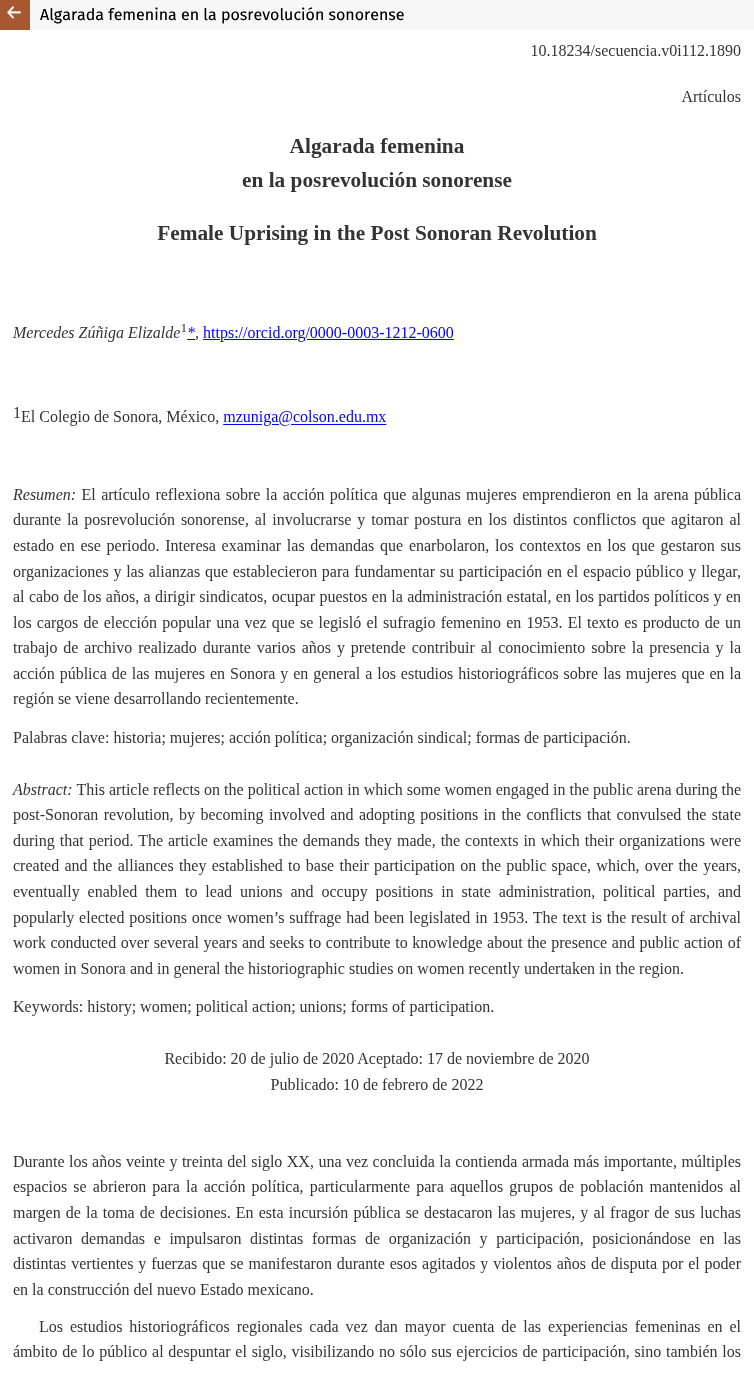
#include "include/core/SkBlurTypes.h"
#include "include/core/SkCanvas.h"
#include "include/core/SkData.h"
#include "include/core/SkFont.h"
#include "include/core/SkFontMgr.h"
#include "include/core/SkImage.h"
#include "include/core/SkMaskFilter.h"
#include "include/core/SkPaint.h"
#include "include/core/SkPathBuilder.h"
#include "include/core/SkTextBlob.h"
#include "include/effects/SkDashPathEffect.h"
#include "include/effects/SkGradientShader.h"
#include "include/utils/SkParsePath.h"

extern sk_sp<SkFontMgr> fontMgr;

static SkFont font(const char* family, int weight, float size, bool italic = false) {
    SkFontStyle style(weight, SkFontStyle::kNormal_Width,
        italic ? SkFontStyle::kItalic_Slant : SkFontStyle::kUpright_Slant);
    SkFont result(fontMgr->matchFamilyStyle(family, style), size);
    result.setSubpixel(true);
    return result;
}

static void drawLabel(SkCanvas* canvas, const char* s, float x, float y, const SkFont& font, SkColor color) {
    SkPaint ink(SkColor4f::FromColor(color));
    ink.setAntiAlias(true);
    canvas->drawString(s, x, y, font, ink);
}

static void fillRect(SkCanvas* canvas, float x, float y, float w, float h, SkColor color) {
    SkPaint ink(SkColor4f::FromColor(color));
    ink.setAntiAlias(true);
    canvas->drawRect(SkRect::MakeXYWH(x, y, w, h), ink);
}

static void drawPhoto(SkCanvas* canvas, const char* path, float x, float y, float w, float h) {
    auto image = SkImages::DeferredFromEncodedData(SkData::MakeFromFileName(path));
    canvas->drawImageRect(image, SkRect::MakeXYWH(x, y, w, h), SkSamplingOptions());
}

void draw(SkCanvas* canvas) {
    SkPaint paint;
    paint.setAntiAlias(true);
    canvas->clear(0xFFFFFFFF);
    fillRect(canvas, 30, 0, 724, 30, 0xFFF7F7F7);
    fillRect(canvas, 0, 0, 30, 30, 0xFFA65830);
    SkFont font1 = font("Fira Sans", 400, 20);
    drawLabel(canvas, "←", 5, 19, font1, 0xFFFFFFFF);
    SkFont font2 = font("Fira Sans", 400, 16);
    drawLabel(canvas, "Algarada femenina en la posrevolución sonorense", 40, 20, font2, 0xFF000000);
    drawPhoto(canvas, "assets/img1.png", 12, 45, 730, 1316);
}
